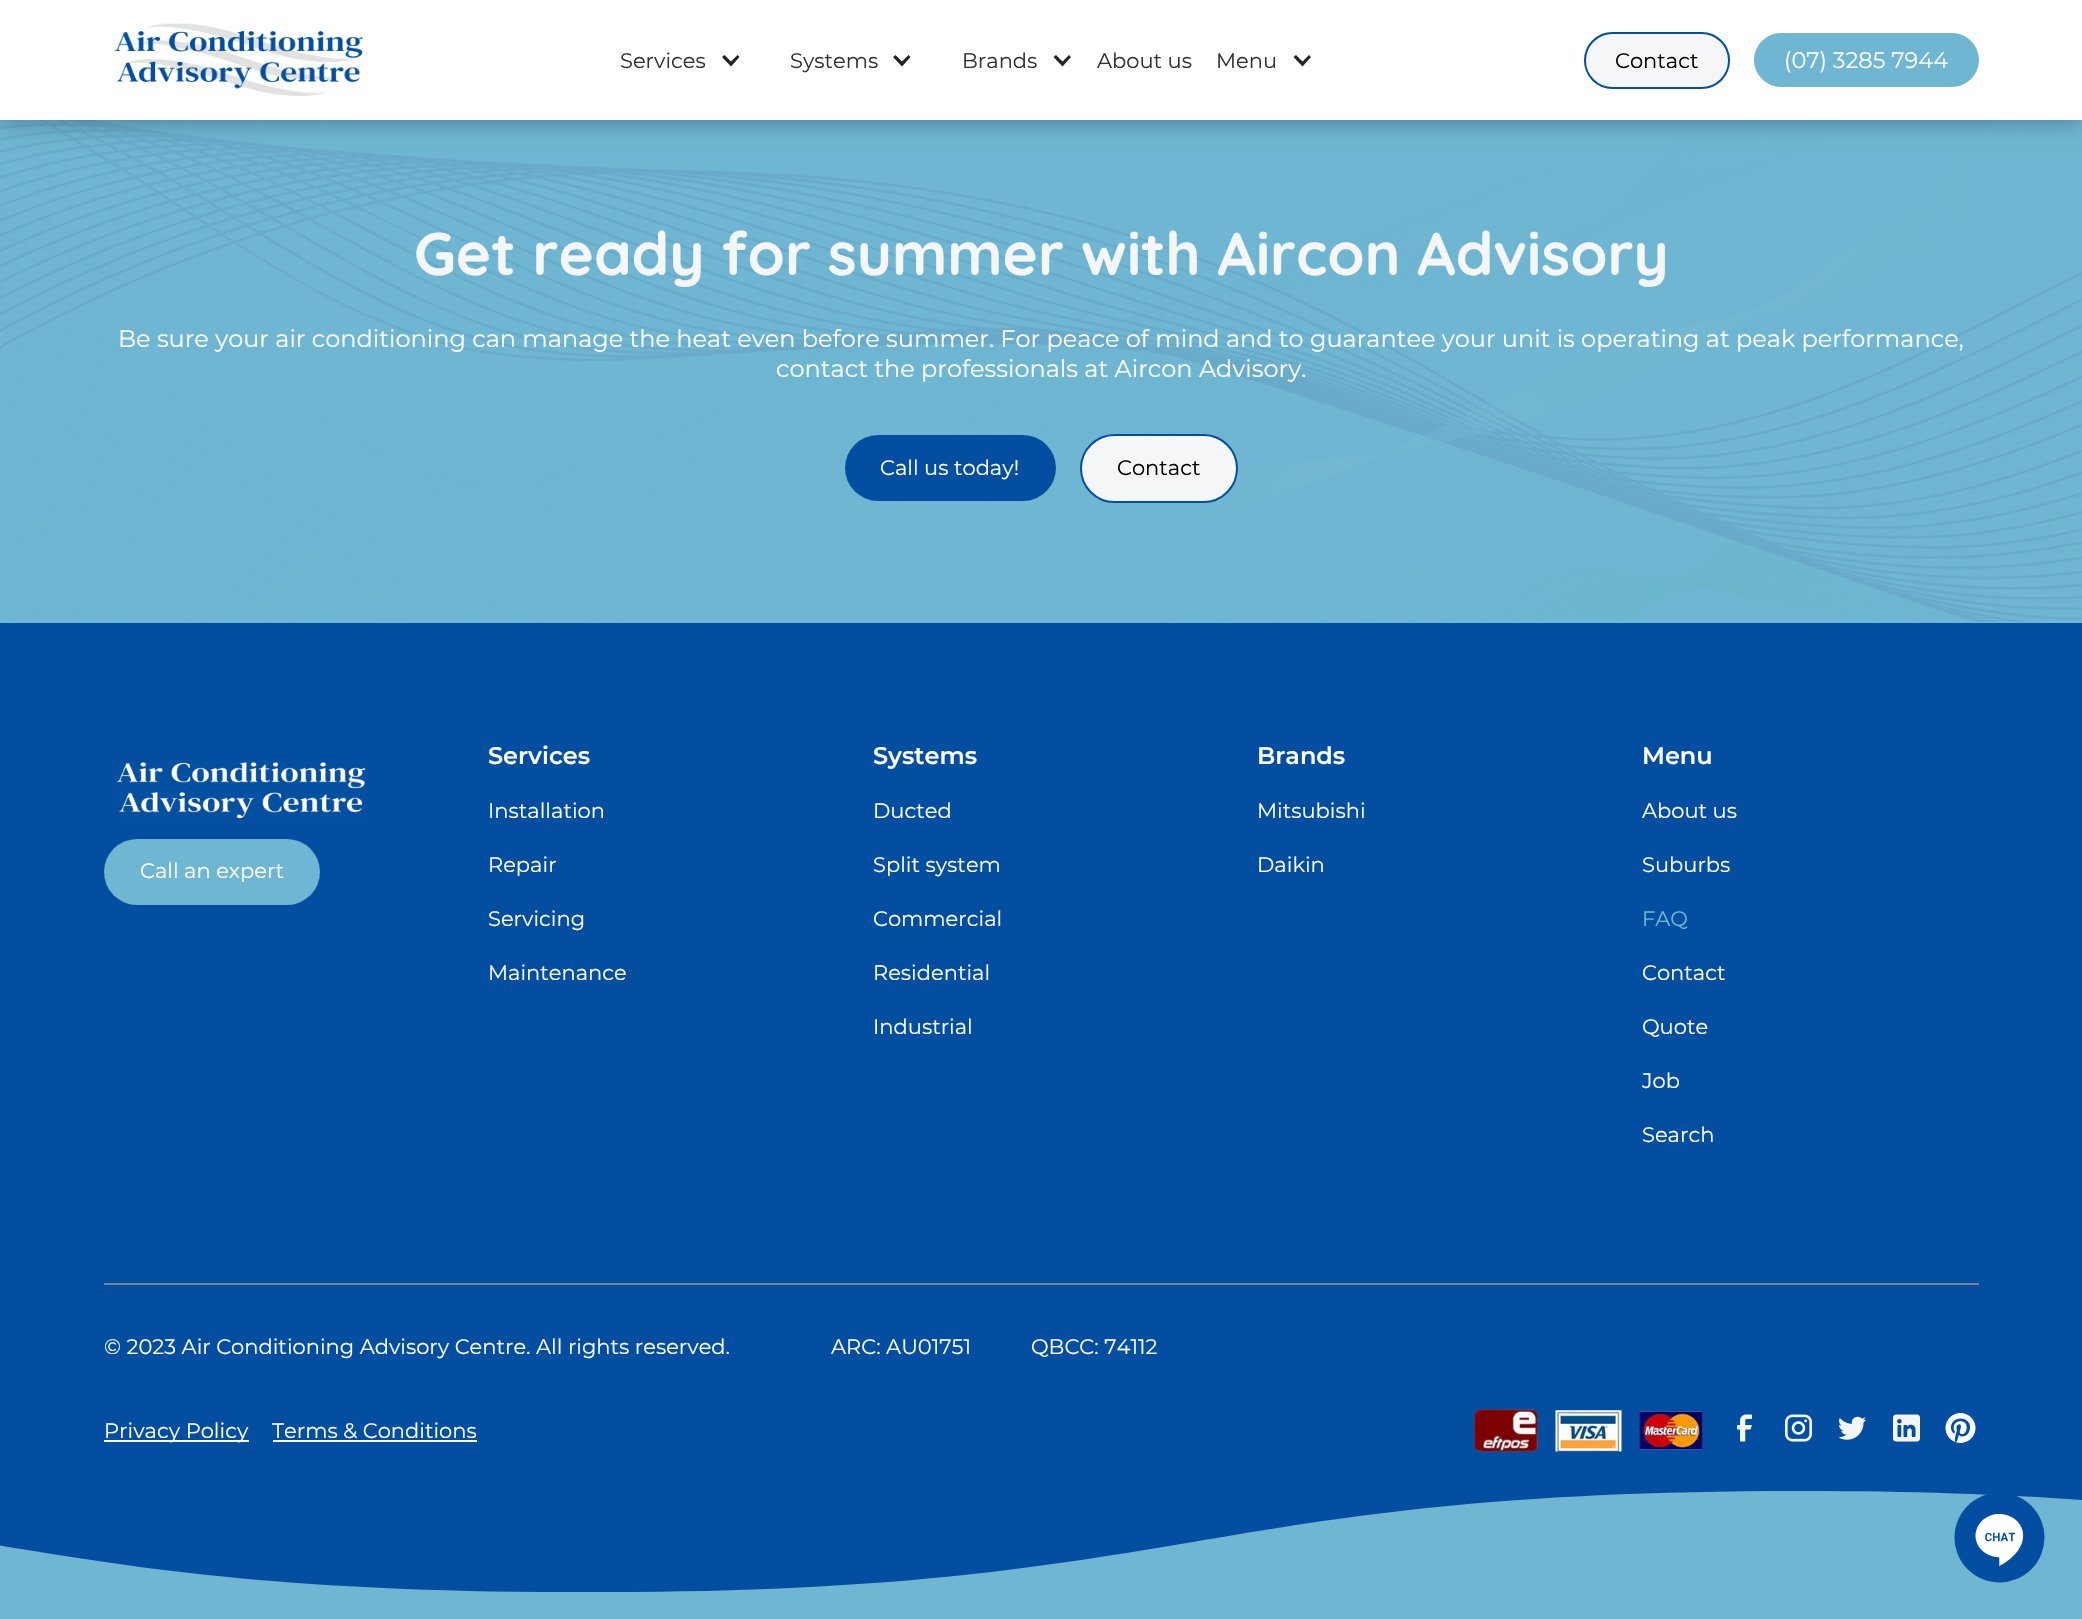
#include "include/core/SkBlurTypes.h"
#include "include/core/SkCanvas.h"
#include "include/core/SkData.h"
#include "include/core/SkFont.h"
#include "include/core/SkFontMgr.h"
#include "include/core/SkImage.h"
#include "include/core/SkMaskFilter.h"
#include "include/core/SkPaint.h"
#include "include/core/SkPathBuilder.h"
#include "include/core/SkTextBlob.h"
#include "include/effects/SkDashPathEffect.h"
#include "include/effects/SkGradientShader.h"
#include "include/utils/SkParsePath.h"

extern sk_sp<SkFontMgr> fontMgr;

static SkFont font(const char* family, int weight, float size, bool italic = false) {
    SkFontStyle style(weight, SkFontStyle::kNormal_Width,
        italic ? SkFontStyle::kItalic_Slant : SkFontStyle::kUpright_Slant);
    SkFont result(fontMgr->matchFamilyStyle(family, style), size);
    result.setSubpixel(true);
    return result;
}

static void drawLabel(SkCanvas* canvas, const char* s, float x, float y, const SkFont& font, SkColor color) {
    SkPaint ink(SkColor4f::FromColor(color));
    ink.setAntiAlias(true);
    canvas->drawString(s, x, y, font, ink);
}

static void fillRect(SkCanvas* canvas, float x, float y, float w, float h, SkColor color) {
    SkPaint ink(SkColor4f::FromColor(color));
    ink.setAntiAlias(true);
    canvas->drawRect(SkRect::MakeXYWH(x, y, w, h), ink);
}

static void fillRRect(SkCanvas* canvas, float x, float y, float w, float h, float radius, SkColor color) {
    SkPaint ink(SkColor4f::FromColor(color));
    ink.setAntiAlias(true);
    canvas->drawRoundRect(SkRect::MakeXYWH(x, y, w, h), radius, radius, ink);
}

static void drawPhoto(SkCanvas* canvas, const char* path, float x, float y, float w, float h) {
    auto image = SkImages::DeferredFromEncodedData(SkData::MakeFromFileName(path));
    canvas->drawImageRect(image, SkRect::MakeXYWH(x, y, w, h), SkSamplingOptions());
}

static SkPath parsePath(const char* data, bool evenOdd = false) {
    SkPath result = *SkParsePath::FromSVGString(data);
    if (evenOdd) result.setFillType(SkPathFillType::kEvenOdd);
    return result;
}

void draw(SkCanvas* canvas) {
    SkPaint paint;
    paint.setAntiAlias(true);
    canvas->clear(0xFF034EA1);
    fillRect(canvas, 0, 120, 2082, 503, 0xFF6EB6D1);
    drawPhoto(canvas, "assets/img2.png", 0, 120, 2082, 502);
    paint.setColor(0x4D000000);
    paint.setMaskFilter(SkMaskFilter::MakeBlur(kNormal_SkBlurStyle, 10.5f));
    canvas->drawRect(SkRect::MakeXYWH(0, 2, 2082, 120), paint);
    paint.setMaskFilter(nullptr);
    fillRect(canvas, 0, 0, 2082, 120, 0xFFFFFFFF);
    drawPhoto(canvas, "assets/img1.png", 114, 23, 249, 73);
    SkFont font1 = font("Montserrat", 400, 21);
    drawLabel(canvas, "Services", 620, 68, font1, 0xFF333333);
    paint.setColor(0xFF222222);
    canvas->drawPath(parsePath("M737.5 55L731 61.5L724.5 55L722 57L731 66.5L739.5 57Z"), paint);
    drawLabel(canvas, "Systems", 790, 68, font1, 0xFF333333);
    canvas->drawPath(parsePath("M908.5 55L902 61.5L895.5 55L893 57L902 66.5L910.5 57Z"), paint);
    drawLabel(canvas, "Brands", 962, 68, font1, 0xFF333333);
    canvas->drawPath(parsePath("M1069 55L1062.5 61.5L1056 55L1053.5 57L1062.5 66.5L1071 57Z"), paint);
    drawLabel(canvas, "About us", 1097, 68, font1, 0xFF333333);
    drawLabel(canvas, "Menu", 1216, 68, font1, 0xFF333333);
    canvas->drawPath(parsePath("M1309 55L1302.5 61.5L1296 55L1293.5 57L1302.5 66.5L1311 57Z"), paint);
    paint.setColor(0xFFF5F6F8);
    canvas->drawRoundRect(SkRect::MakeXYWH(1585, 33, 144, 55), 27.5f, 27.5f, paint);
    paint.setStroke(true);
    paint.setStrokeWidth(2);
    paint.setColor(0xFF034EA1);
    canvas->drawRoundRect(SkRect::MakeXYWH(1585, 33, 144, 55), 27.5f, 27.5f, paint);
    drawLabel(canvas, "Contact", 1615, 68, font1, 0xFF000000);
    fillRRect(canvas, 1754, 33, 225, 54, 27, 0xFF6EB6D1);
    SkFont font2 = font("Montserrat", 400, 22.5f);
    drawLabel(canvas, "(07) 3285 7944", 1784, 68, font2, 0xFFFFFFFF);
    SkFont font3 = font("Quicksand", 700, 60);
    drawLabel(canvas, "Get ready for summer with Aircon Advisory", 414, 275, font3, 0xFFF5F6F8);
    SkFont font4 = font("Montserrat", 400, 24);
    drawLabel(canvas, "Be sure your air conditioning can manage the heat even before summer. For peace of mind and to guarantee your unit is operating at peak performance,", 118, 347, font4, 0xFFFFFFFF);
    drawLabel(canvas, "contact the professionals at Aircon Advisory.", 776, 377, font4, 0xFFFFFFFF);
    fillRRect(canvas, 845, 435, 211, 66, 33, 0xFF034EA1);
    drawLabel(canvas, "Call us today!", 880, 475, font1, 0xFFFFFFFF);
    paint.setStroke(false);
    paint.setColor(0xFFF5F6F8);
    canvas->drawRoundRect(SkRect::MakeXYWH(1081, 435, 156, 67), 33.5f, 33.5f, paint);
    paint.setStroke(true);
    paint.setColor(0xFF034EA1);
    canvas->drawRoundRect(SkRect::MakeXYWH(1081, 435, 156, 67), 33.5f, 33.5f, paint);
    drawLabel(canvas, "Contact", 1117, 475, font1, 0xFF000000);
    paint.setStroke(false);
    paint.setColor(0xFF6EB6D1);
    canvas->drawPath(parsePath("M-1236 1542C-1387 1567-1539 1592-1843 1592H-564V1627H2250V1592H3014C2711 1592 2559 1567 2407 1542C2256 1516 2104 1491 1800 1491C1497 1491 1345 1516 1193 1542C1049 1566 906 1590 634 1592H538C266 1590 122 1566-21 1542C-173 1516-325 1491-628 1491C-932 1491-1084 1516-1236 1542Z", true), paint);
    drawPhoto(canvas, "assets/img3.png", 116, 762, 250, 57);
    fillRRect(canvas, 104, 839, 216, 66, 33, 0xFF6EB6D1);
    drawLabel(canvas, "Call an expert", 140, 878, font1, 0xFFFFFFFF);
    SkFont font5 = font("Montserrat", 600, 24);
    drawLabel(canvas, "Services", 488, 764, font5, 0xFFFFFFFF);
    drawLabel(canvas, "Installation", 488, 818, font1, 0xFFFFFFFF);
    drawLabel(canvas, "Repair", 488, 872, font1, 0xFFFFFFFF);
    drawLabel(canvas, "Servicing", 488, 926, font1, 0xFFFFFFFF);
    drawLabel(canvas, "Maintenance", 488, 980, font1, 0xFFFFFFFF);
    drawLabel(canvas, "Systems", 873, 764, font5, 0xFFFFFFFF);
    drawLabel(canvas, "Ducted", 873, 818, font1, 0xFFFFFFFF);
    drawLabel(canvas, "Split system", 873, 872, font1, 0xFFFFFFFF);
    drawLabel(canvas, "Commercial", 873, 926, font1, 0xFFFFFFFF);
    drawLabel(canvas, "Residential", 873, 980, font1, 0xFFFFFFFF);
    drawLabel(canvas, "Industrial", 873, 1034, font1, 0xFFFFFFFF);
    drawLabel(canvas, "Brands", 1257, 764, font5, 0xFFFFFFFF);
    drawLabel(canvas, "Mitsubishi", 1257, 818, font1, 0xFFFFFFFF);
    drawLabel(canvas, "Daikin", 1257, 872, font1, 0xFFFFFFFF);
    drawLabel(canvas, "Menu", 1642, 764, font5, 0xFFFFFFFF);
    drawLabel(canvas, "About us", 1642, 818, font1, 0xFFFFFFFF);
    drawLabel(canvas, "Suburbs", 1642, 872, font1, 0xFFFFFFFF);
    drawLabel(canvas, "FAQ", 1642, 926, font1, 0xFF6EB6D1);
    drawLabel(canvas, "Contact", 1642, 980, font1, 0xFFFFFFFF);
    drawLabel(canvas, "Quote", 1642, 1034, font1, 0xFFFFFFFF);
    drawLabel(canvas, "Job", 1642, 1088, font1, 0xFFFFFFFF);
    drawLabel(canvas, "Search", 1642, 1142, font1, 0xFFFFFFFF);
    fillRect(canvas, 104, 1283, 1875, 2, 0xFF7A8292);
    drawLabel(canvas, "© 2023 Air Conditioning Advisory Centre. All rights reserved.", 104, 1354, font1, 0xFFFFFFFF);
    drawLabel(canvas, "ARC: AU01751", 831, 1354, font1, 0xFFFFFFFF);
    drawLabel(canvas, "QBCC: 74112", 1031, 1354, font1, 0xFFFFFFFF);
    fillRect(canvas, 104, 1440, 145, 2, 0xFFFFFFFF);
    drawLabel(canvas, "Privacy Policy", 104, 1438, font1, 0xFFFFFFFF);
    drawLabel(canvas, "Terms & Conditions", 272, 1438, font1, 0xFFFFFFFF);
    fillRect(canvas, 273, 1440, 204, 2, 0xFFFFFFFF);
    drawPhoto(canvas, "assets/img4.png", 1474, 1409, 64, 43);
    drawPhoto(canvas, "assets/img5.png", 1555, 1410, 67, 42);
    drawPhoto(canvas, "assets/img6.png", 1639, 1411, 64, 39);
    drawPhoto(canvas, "assets/img7.png", 1737, 1414, 15, 28);
    drawPhoto(canvas, "assets/img8.png", 1785, 1414, 27, 28);
    drawPhoto(canvas, "assets/img9.png", 1839, 1416, 27, 24);
    drawPhoto(canvas, "assets/img10.png", 1893, 1414, 27, 28);
    drawPhoto(canvas, "assets/img11.png", 1945, 1413, 31, 30);
    drawPhoto(canvas, "assets/img12.png", 1954, 1470, 91, 113);
}
